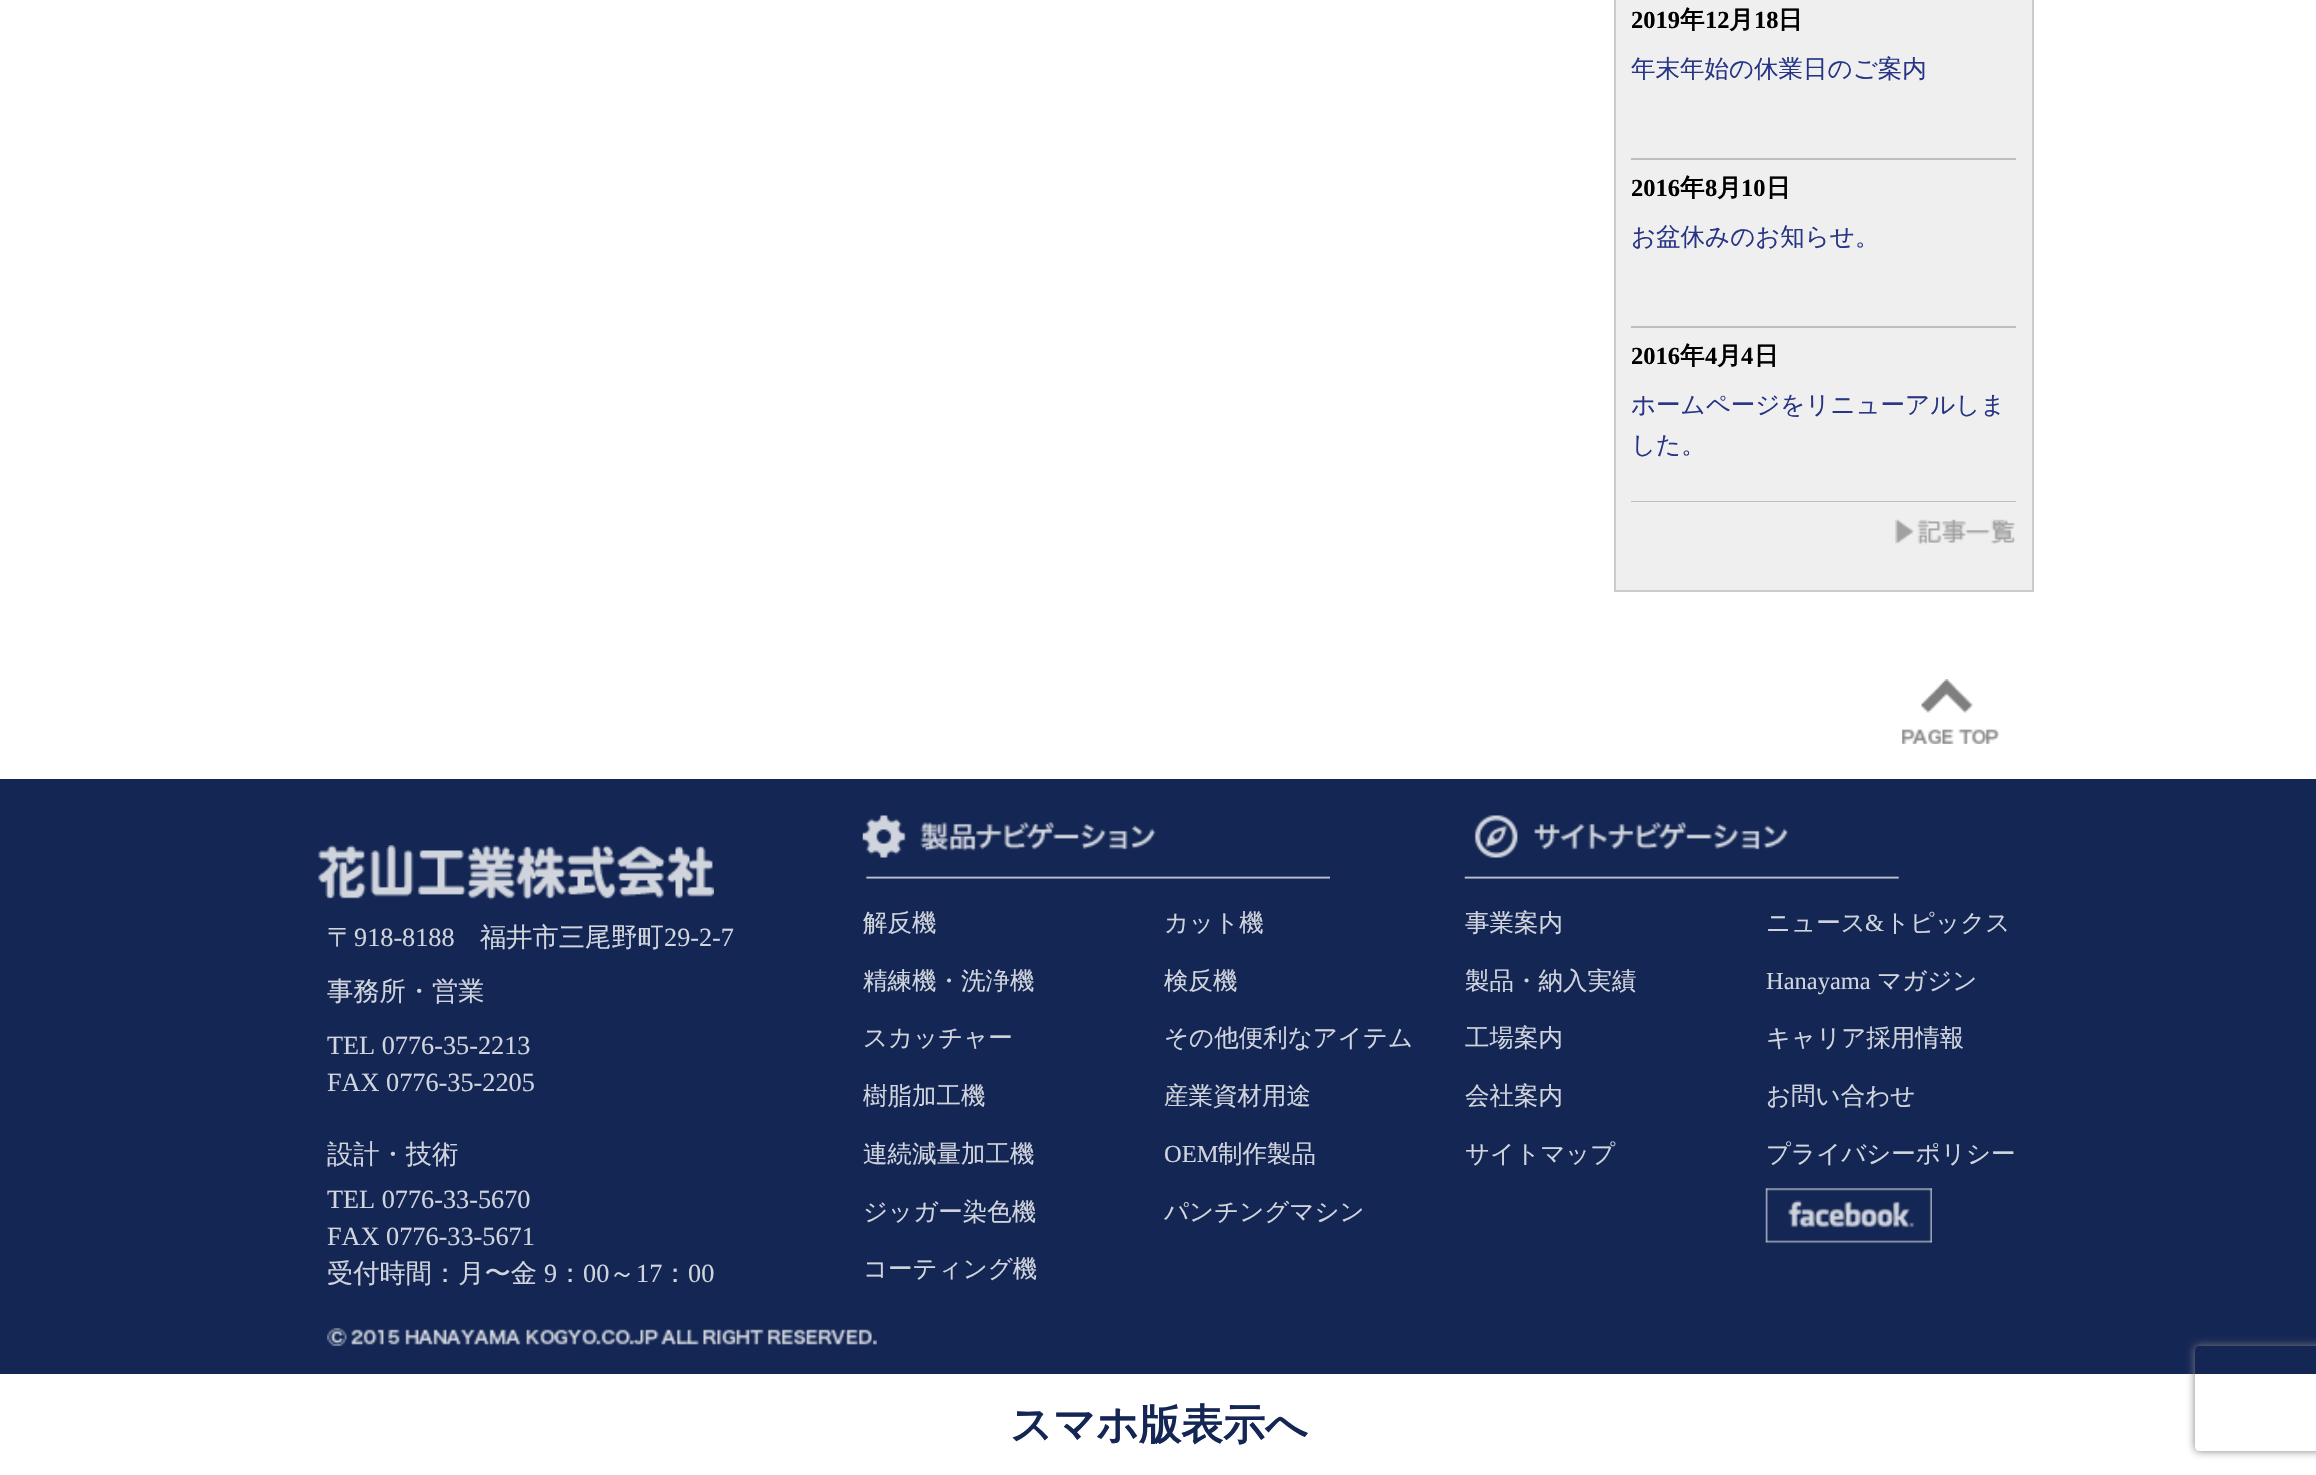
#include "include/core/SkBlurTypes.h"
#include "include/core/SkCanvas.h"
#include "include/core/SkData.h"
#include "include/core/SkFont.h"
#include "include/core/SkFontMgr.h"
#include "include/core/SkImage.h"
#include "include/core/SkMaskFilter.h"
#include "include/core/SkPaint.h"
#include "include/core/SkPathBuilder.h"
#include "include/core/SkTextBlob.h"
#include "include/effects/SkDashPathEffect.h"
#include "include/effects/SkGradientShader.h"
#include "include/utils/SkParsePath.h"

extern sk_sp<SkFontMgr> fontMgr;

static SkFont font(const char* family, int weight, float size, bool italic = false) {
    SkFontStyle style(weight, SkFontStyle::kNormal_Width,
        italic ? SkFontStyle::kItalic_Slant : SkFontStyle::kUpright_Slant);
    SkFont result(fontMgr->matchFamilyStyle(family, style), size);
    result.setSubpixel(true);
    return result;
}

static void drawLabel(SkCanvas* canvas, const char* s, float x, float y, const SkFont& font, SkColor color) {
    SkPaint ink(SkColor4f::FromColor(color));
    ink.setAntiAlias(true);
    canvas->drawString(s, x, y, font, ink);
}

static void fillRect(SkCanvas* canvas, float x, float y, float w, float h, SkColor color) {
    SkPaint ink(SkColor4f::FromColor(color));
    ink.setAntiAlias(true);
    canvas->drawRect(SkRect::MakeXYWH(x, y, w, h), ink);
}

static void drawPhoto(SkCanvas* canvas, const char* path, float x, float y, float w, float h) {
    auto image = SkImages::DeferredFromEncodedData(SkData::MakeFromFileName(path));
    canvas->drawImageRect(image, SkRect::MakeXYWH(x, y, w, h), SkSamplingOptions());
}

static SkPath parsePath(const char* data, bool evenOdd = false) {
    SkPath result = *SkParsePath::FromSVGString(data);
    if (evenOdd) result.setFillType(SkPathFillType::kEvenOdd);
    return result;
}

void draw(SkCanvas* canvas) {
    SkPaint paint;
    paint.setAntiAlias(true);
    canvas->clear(0xFFFFFFFF);
    fillRect(canvas, 1616, 0, 416, 590, 0xFFEFEFEF);
    fillRect(canvas, 2032, 0, 2, 592, 0xFFCCCCCC);
    fillRect(canvas, 1614, 0, 2, 502, 0xFFCCCCCC);
    fillRect(canvas, 1631, 158, 385, 2, 0xFFBFBFBF);
    SkFont font1 = font("Liberation Serif", 700, 24.5f);
    drawLabel(canvas, "2019", 1631, 28, font1, 0xFF000000);
    SkFont font2 = font("WenQuanYi Zen Hei", 700, 24.5f);
    drawLabel(canvas, "年", 1680, 28, font2, 0xFF000000);
    drawLabel(canvas, "12", 1705, 28, font1, 0xFF000000);
    drawLabel(canvas, "月", 1729, 28, font2, 0xFF000000);
    drawLabel(canvas, "18", 1754, 28, font1, 0xFF000000);
    drawLabel(canvas, "日", 1778, 28, font2, 0xFF000000);
    SkFont font3 = font("WenQuanYi Zen Hei", 500, 24.5f);
    drawLabel(canvas, "年末年始の休業日のご案内", 1631, 77, font3, 0xFF283585);
    fillRect(canvas, 1631, 326, 385, 2, 0xFFBFBFBF);
    drawLabel(canvas, "2016", 1631, 196, font1, 0xFF000000);
    drawLabel(canvas, "年", 1680, 196, font2, 0xFF000000);
    drawLabel(canvas, "8", 1705, 196, font1, 0xFF000000);
    drawLabel(canvas, "月", 1717, 196, font2, 0xFF000000);
    drawLabel(canvas, "10", 1741, 196, font1, 0xFF000000);
    drawLabel(canvas, "日", 1766, 196, font2, 0xFF000000);
    drawLabel(canvas, "お盆休みのお知らせ。", 1631, 245, font3, 0xFF283585);
    fillRect(canvas, 1631, 501, 385, 1, 0xFFBFBFBF);
    drawLabel(canvas, "2016", 1631, 364, font1, 0xFF000000);
    drawLabel(canvas, "年", 1680, 364, font2, 0xFF000000);
    drawLabel(canvas, "4", 1705, 364, font1, 0xFF000000);
    drawLabel(canvas, "月", 1717, 364, font2, 0xFF000000);
    drawLabel(canvas, "4", 1741, 364, font1, 0xFF000000);
    drawLabel(canvas, "日", 1754, 364, font2, 0xFF000000);
    drawLabel(canvas, "ホームページをリニューアルしま", 1631, 413, font3, 0xFF283585);
    drawLabel(canvas, "した。", 1631, 453, font3, 0xFF283585);
    fillRect(canvas, 1614, 590, 420, 2, 0xFFCCCCCC);
    fillRect(canvas, 1614, 502, 2, 90, 0xFFCCCCCC);
    drawPhoto(canvas, "assets/img1.png", 1895, 519, 120, 26);
    drawPhoto(canvas, "assets/img2.png", 1902, 679, 97, 65);
    fillRect(canvas, 0, 779, 2316, 595, 0xFF142654);
    drawPhoto(canvas, "assets/img3.png", 318, 845, 396, 55);
    SkFont font4 = font("WenQuanYi Zen Hei", 500, 26.25f);
    drawLabel(canvas, "〒", 327, 946, font4, 0xFFD0D4DD);
    SkFont font5 = font("Liberation Serif", 400, 26.25f);
    drawLabel(canvas, "918-8188", 354, 946, font5, 0xFFD0D4DD);
    drawLabel(canvas, "福井市三尾野町", 480, 946, font4, 0xFFD0D4DD);
    drawLabel(canvas, "29-2-7", 664, 946, font5, 0xFFD0D4DD);
    drawLabel(canvas, "事務所・営業", 327, 1000, font4, 0xFFD0D4DD);
    drawLabel(canvas, "TEL 0776-35-2213", 327, 1054, font5, 0xFFD0D4DD);
    drawLabel(canvas, "FAX 0776-35-2205", 327, 1091, font5, 0xFFD0D4DD);
    drawLabel(canvas, "設計・技術", 327, 1163, font4, 0xFFD0D4DD);
    drawLabel(canvas, "TEL 0776-33-5670", 327, 1208, font5, 0xFFD0D4DD);
    drawLabel(canvas, "FAX 0776-33-5671", 327, 1245, font5, 0xFFD0D4DD);
    drawLabel(canvas, "受付時間：月〜金", 327, 1282, font4, 0xFFD0D4DD);
    drawLabel(canvas, "9", 544, 1282, font5, 0xFFD0D4DD);
    drawLabel(canvas, "：", 557, 1282, font4, 0xFFD0D4DD);
    drawLabel(canvas, "00", 583, 1282, font5, 0xFFD0D4DD);
    drawLabel(canvas, "～", 609, 1282, font4, 0xFFD0D4DD);
    drawLabel(canvas, "17", 636, 1282, font5, 0xFFD0D4DD);
    drawLabel(canvas, "：", 662, 1282, font4, 0xFFD0D4DD);
    drawLabel(canvas, "00", 688, 1282, font5, 0xFFD0D4DD);
    drawPhoto(canvas, "assets/img4.png", 327, 1328, 550, 18);
    drawPhoto(canvas, "assets/img5.png", 862, 815, 468, 64);
    drawPhoto(canvas, "assets/img6.png", 1464, 815, 435, 64);
    drawLabel(canvas, "解反機", 863, 931, font3, 0xFFD0D4DD);
    drawLabel(canvas, "精練機・洗浄機", 863, 989, font3, 0xFFD0D4DD);
    drawLabel(canvas, "スカッチャー", 863, 1046, font3, 0xFFD0D4DD);
    drawLabel(canvas, "樹脂加工機", 863, 1104, font3, 0xFFD0D4DD);
    drawLabel(canvas, "連続減量加工機", 863, 1162, font3, 0xFFD0D4DD);
    drawLabel(canvas, "ジッガー染色機", 863, 1220, font3, 0xFFD0D4DD);
    drawLabel(canvas, "コーティング機", 863, 1277, font3, 0xFFD0D4DD);
    drawLabel(canvas, "カット機", 1164, 931, font3, 0xFFD0D4DD);
    drawLabel(canvas, "検反機", 1164, 989, font3, 0xFFD0D4DD);
    drawLabel(canvas, "その他便利なアイテム", 1164, 1046, font3, 0xFFD0D4DD);
    drawLabel(canvas, "産業資材用途", 1164, 1104, font3, 0xFFD0D4DD);
    SkFont font6 = font("Liberation Serif", 400, 24.5f);
    drawLabel(canvas, "OEM", 1164, 1162, font6, 0xFFD0D4DD);
    drawLabel(canvas, "制作製品", 1218, 1162, font3, 0xFFD0D4DD);
    drawLabel(canvas, "パンチングマシン", 1164, 1220, font3, 0xFFD0D4DD);
    drawLabel(canvas, "事業案内", 1465, 931, font3, 0xFFD0D4DD);
    drawLabel(canvas, "製品・納入実績", 1465, 989, font3, 0xFFD0D4DD);
    drawLabel(canvas, "工場案内", 1465, 1046, font3, 0xFFD0D4DD);
    drawLabel(canvas, "会社案内", 1465, 1104, font3, 0xFFD0D4DD);
    drawLabel(canvas, "サイトマップ", 1465, 1162, font3, 0xFFD0D4DD);
    drawLabel(canvas, "ニュース", 1766, 931, font3, 0xFFD0D4DD);
    drawLabel(canvas, "&", 1865, 931, font6, 0xFFD0D4DD);
    drawLabel(canvas, "トピックス", 1885, 931, font3, 0xFFD0D4DD);
    drawLabel(canvas, "Hanayama", 1766, 989, font6, 0xFFD0D4DD);
    drawLabel(canvas, "マガジン", 1877, 989, font3, 0xFFD0D4DD);
    drawLabel(canvas, "キャリア採用情報", 1766, 1046, font3, 0xFFD0D4DD);
    drawLabel(canvas, "お問い合わせ", 1766, 1104, font3, 0xFFD0D4DD);
    drawLabel(canvas, "プライバシーポリシー", 1766, 1162, font3, 0xFFD0D4DD);
    drawPhoto(canvas, "assets/img7.png", 1765, 1188, 167, 55);
    SkFont font7 = font("WenQuanYi Zen Hei", 700, 42);
    drawLabel(canvas, "スマホ版表示へ", 1010, 1439, font7, 0xFF142654);
    canvas->save();
    canvas->clipPath(parsePath("M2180 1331H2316V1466H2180ZM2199 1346H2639C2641 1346 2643 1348 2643 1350V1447C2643 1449 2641 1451 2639 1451H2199C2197 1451 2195 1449 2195 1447V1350C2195 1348 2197 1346 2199 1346Z", true), true);
    paint.setColor(0xFF808080);
    paint.setMaskFilter(SkMaskFilter::MakeBlur(kNormal_SkBlurStyle, 4.5f));
    canvas->drawRoundRect(SkRect::MakeXYWH(2195, 1346, 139, 105), 4, 4, paint);
    paint.setMaskFilter(nullptr);
    canvas->restore();
}
